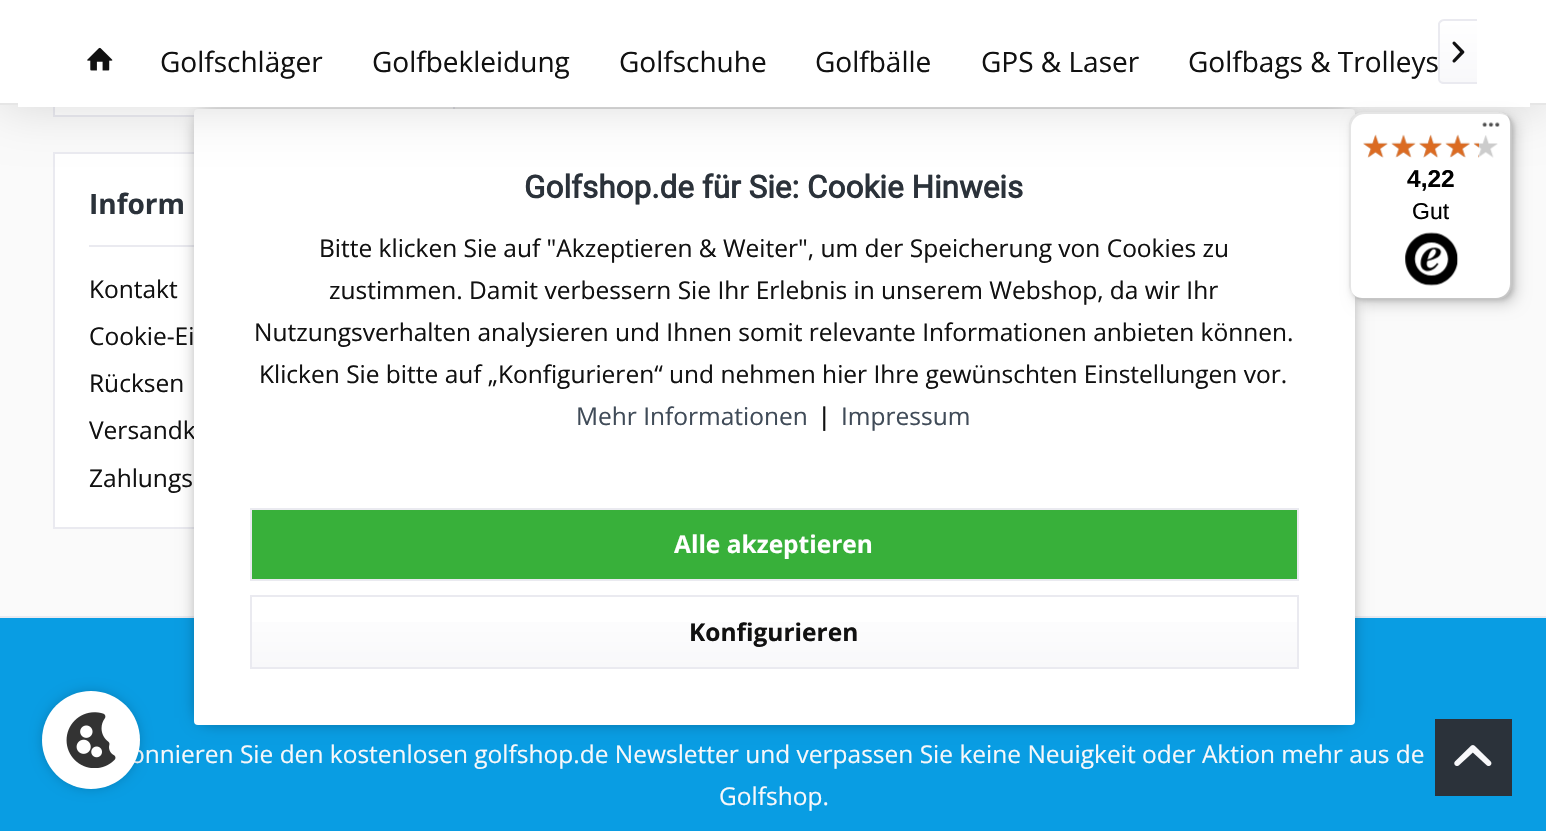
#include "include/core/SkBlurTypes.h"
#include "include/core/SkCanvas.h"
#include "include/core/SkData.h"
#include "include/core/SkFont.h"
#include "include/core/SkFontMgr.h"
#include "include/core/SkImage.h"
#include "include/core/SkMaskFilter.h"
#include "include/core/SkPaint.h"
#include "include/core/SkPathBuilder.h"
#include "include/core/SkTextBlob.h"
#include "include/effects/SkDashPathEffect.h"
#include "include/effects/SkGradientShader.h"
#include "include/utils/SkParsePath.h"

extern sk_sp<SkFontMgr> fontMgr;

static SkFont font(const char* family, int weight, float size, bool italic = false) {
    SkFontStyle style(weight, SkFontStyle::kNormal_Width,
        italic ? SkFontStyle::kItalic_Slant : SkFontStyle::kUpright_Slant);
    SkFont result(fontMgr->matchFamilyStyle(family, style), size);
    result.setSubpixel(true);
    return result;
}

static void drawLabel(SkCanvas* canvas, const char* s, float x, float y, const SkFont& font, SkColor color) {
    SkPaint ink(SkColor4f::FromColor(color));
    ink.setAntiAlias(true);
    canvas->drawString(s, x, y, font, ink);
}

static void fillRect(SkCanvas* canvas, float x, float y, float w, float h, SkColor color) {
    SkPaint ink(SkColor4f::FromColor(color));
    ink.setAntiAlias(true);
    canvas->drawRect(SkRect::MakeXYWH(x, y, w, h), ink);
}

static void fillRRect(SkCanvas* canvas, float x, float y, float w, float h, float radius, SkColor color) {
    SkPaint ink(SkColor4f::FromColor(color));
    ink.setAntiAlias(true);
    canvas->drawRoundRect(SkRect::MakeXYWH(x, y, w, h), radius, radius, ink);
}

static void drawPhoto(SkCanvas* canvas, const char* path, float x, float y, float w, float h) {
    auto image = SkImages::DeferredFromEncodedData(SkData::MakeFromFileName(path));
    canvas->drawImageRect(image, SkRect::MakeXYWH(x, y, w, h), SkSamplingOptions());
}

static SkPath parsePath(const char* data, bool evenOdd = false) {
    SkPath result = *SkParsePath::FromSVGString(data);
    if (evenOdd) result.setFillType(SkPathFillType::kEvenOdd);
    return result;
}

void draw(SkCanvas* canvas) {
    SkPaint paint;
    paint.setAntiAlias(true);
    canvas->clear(0xFFFAFAFA);
    fillRect(canvas, 55, 107, 398, 8, 0xFFFFFFFF);
    paint.setStroke(true);
    paint.setStrokeWidth(2);
    paint.setColor(0xFFEAEAF0);
    canvas->drawRect(SkRect::MakeXYWH(54, -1, 400, 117), paint);
    fillRect(canvas, 55, 154, 139, 373, 0xFFFFFFFF);
    canvas->drawRect(SkRect::MakeXYWH(54, 153, 400, 375), paint);
    SkFont font1 = font("Open Sans", 400, 24.5f);
    drawLabel(canvas, "Versandk", 89, 439, font1, 0xFF111111);
    fillRect(canvas, 0, 616, 1546, 2, 0xFFEAEAF0);
    fillRect(canvas, 0, 618, 1546, 213, 0xFF099DE3);
    fillRect(canvas, 89, 245, 105, 2, 0xFFEAEAF0);
    paint.setStroke(false);
    paint.setColor(0x99000000);
    paint.setMaskFilter(SkMaskFilter::MakeBlur(kNormal_SkBlurStyle, 9));
    canvas->drawRect(SkRect::MakeXYWH(201, 116, 1147, 602), paint);
    paint.setMaskFilter(nullptr);
    fillRRect(canvas, 194, 109, 1161, 616, 4, 0xFFFFFFFF);
    paint.setColor(0x26000000);
    paint.setMaskFilter(SkMaskFilter::MakeBlur(kNormal_SkBlurStyle, 26));
    canvas->drawRect(SkRect::MakeXYWH(0, 0, 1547, 105), paint);
    paint.setMaskFilter(nullptr);
    fillRect(canvas, 0, 0, 1546, 103, 0xFFFFFFFF);
    fillRect(canvas, 0, 103, 1546, 2, 0xFFE6E6E6);
    fillRect(canvas, 18, 103, 1512, 4, 0xFFFFFFFF);
    drawPhoto(canvas, "assets/img1.png", 87, 47, 26, 24);
    SkFont font2 = font("Open Sans", 400, 28);
    drawLabel(canvas, "Golfschläger", 160, 72, font2, 0xFF111111);
    drawLabel(canvas, "Golfbekleidung", 372, 72, font2, 0xFF111111);
    drawLabel(canvas, "Golfschuhe", 619, 72, font2, 0xFF111111);
    drawLabel(canvas, "Golfbälle", 815, 72, font2, 0xFF111111);
    drawLabel(canvas, "GPS & Laser", 981, 72, font2, 0xFF111111);
    drawLabel(canvas, "Golfbags & Trolleys", 1188, 72, font2, 0xFF111111);
    {
        const SkColor colors[] = {0xFFFFFFFF, 0xFFF8F8FA};
        const float stops[] = {0, 1};
        const SkPoint ends[] = {{1459, 21}, {1459, 82}};
        paint.setShader(SkGradientShader::MakeLinear(ends, colors, stops, 2, SkTileMode::kClamp));
        paint.setAlpha(255);
    }
    canvas->drawPath(parsePath("M1444 21H1477V82H1444C1442 82 1440 80 1440 78V25C1440 23 1442 21 1444 21Z"), paint);
    paint.setShader(nullptr);
    paint.setColor(0xFFEAEAF0);
    canvas->drawPath(parsePath("M1444 19H1477V84H1444C1441 84 1438 82 1438 79V24C1438 22 1441 19 1444 19ZM1444 21H1477V82H1444C1442 82 1440 81 1440 79V24C1440 23 1442 21 1444 21Z", true), paint);
    drawPhoto(canvas, "assets/img2.png", 1452, 41, 13, 22);
    SkFont font3 = font("Open Sans", 700, 28);
    drawLabel(canvas, "Inform", 89, 214, font3, 0xFF2B323A);
    drawLabel(canvas, "Kontakt", 89, 298, font1, 0xFF111111);
    drawLabel(canvas, "Cookie-Ei", 89, 345, font1, 0xFF111111);
    drawLabel(canvas, "Rücksen", 89, 392, font1, 0xFF111111);
    drawLabel(canvas, "Zahlungs", 89, 487, font1, 0xFF111111);
    drawLabel(canvas, "onnieren Sie den kostenlosen golfshop.de Newsletter und verpassen Sie keine Neuigkeit oder Aktion mehr aus de", 130, 763, font1, 0xFFF8F8FA);
    drawLabel(canvas, "Golfshop.", 719, 805, font1, 0xFFF8F8FA);
    fillRect(canvas, 1435, 719, 77, 77, 0xFF2B323A);
    drawPhoto(canvas, "assets/img3.png", 1454, 745, 38, 21);
    SkFont font4 = font("Roboto", 700, 31.5f);
    drawLabel(canvas, "Golfshop.de für Sie: Cookie Hinweis", 524, 198, font4, 0xFF2B323A);
    drawLabel(canvas, "Bitte klicken Sie auf \"Akzeptieren & Weiter\", um der Speicherung von Cookies zu", 319, 257, font1, 0xFF111111);
    drawLabel(canvas, "zustimmen. Damit verbessern Sie Ihr Erlebnis in unserem Webshop, da wir Ihr", 329, 299, font1, 0xFF111111);
    drawLabel(canvas, "Nutzungsverhalten analysieren und Ihnen somit relevante Informationen anbieten können.", 254, 341, font1, 0xFF111111);
    drawLabel(canvas, "Klicken Sie bitte auf „Konfigurieren“ und nehmen hier Ihre gewünschten Einstellungen vor.", 259, 383, font1, 0xFF111111);
    drawLabel(canvas, "Mehr Informationen", 576, 425, font1, 0xFF404B58);
    SkFont font5 = font("DejaVu Sans", 400, 24.5f);
    drawLabel(canvas, "❘", 814, 425, font5, 0xFF111111);
    drawLabel(canvas, "Impressum", 841, 425, font1, 0xFF404B58);
    paint.setColor(0xFF38B03A);
    canvas->drawRect(SkRect::MakeXYWH(251, 509, 1047, 71), paint);
    paint.setStroke(true);
    paint.setColor(0xFFEAEAF0);
    canvas->drawRect(SkRect::MakeXYWH(251, 509, 1047, 71), paint);
    SkFont font6 = font("Open Sans", 700, 24.5f);
    drawLabel(canvas, "Alle akzeptieren", 674, 553, font6, 0xFFFFFFFF);
    paint.setStroke(false);
    {
        const SkColor colors[] = {0xFFFFFFFF, 0xFFF8F8FA};
        const float stops[] = {0, 1};
        const SkPoint ends[] = {{774, 597}, {774, 667}};
        paint.setShader(SkGradientShader::MakeLinear(ends, colors, stops, 2, SkTileMode::kClamp));
        paint.setAlpha(255);
    }
    canvas->drawRect(SkRect::MakeXYWH(252, 622, 1045, 45), paint);
    paint.setStroke(true);
    paint.setShader(nullptr);
    paint.setColor(0xFFEAEAF0);
    canvas->drawRect(SkRect::MakeXYWH(251, 596, 1047, 72), paint);
    drawLabel(canvas, "Konfigurieren", 689, 641, font6, 0xFF111111);
    paint.setStroke(false);
    paint.setColor(0x26000000);
    paint.setMaskFilter(SkMaskFilter::MakeBlur(kNormal_SkBlurStyle, 7));
    canvas->drawRoundRect(SkRect::MakeXYWH(1355, 117, 162, 188), 14, 14, paint);
    paint.setMaskFilter(nullptr);
    paint.setMaskFilter(SkMaskFilter::MakeBlur(kNormal_SkBlurStyle, 2));
    canvas->drawRoundRect(SkRect::MakeXYWH(1351, 114, 163, 187), 14, 14, paint);
    paint.setMaskFilter(nullptr);
    fillRRect(canvas, 1349, 112, 163, 187, 14, 0xFFFFFFFF);
    paint.setColor(0x1A000000);
    canvas->drawPath(parsePath("M1365 114H1500C1503 114 1507 115 1509 118C1507 114 1503 112 1498 112H1363C1355 112 1349 118 1349 126V285C1349 289 1351 293 1354 295C1352 293 1351 290 1351 287V128C1351 120 1357 114 1365 114Z"), paint);
    paint.setColor(0x33000000);
    canvas->drawPath(parsePath("M1352 293C1354 297 1358 299 1363 299H1498C1506 299 1512 293 1512 285V126C1512 121 1510 117 1506 115C1509 117 1510 121 1510 124V284C1510 291 1504 298 1496 298H1362C1358 298 1354 296 1352 293Z"), paint);
    paint.setColor(0x33323232);
    canvas->drawPath(parsePath("M1354 295C1356 298 1359 299 1363 299H1498C1506 299 1512 293 1512 285V126C1512 122 1511 119 1508 117C1510 119 1511 122 1511 125V284C1511 292 1505 298 1497 298H1362C1359 298 1356 297 1354 295Z"), paint);
    paint.setColor(0x4DFFFFFF);
    canvas->drawPath(parsePath("M1352 294C1354 297 1358 299 1363 299H1498C1506 299 1512 293 1512 285V126C1512 122 1511 119 1508 117C1510 119 1511 122 1511 125V284C1511 292 1505 298 1497 298H1362C1358 298 1355 296 1352 294Z"), paint);
    drawPhoto(canvas, "assets/img4.png", 1482, 122, 18, 5);
    drawPhoto(canvas, "assets/img10.png", 1363, 135, 25, 23);
    drawPhoto(canvas, "assets/img5.png", 1363, 134, 25, 24);
    drawPhoto(canvas, "assets/img11.png", 1392, 135, 23, 22);
    drawPhoto(canvas, "assets/img6.png", 1391, 134, 25, 24);
    drawPhoto(canvas, "assets/img12.png", 1419, 135, 23, 23);
    drawPhoto(canvas, "assets/img7.png", 1419, 134, 23, 24);
    drawPhoto(canvas, "assets/img13.png", 1446, 135, 24, 22);
    drawPhoto(canvas, "assets/img8.png", 1445, 134, 25, 24);
    drawPhoto(canvas, "assets/img14.png", 1474, 135, 24, 23);
    drawPhoto(canvas, "assets/img9.png", 1473, 142, 6, 16);
    SkFont font7 = font("Liberation Sans", 700, 24.5f);
    drawLabel(canvas, "4,22", 1407, 187, font7, 0xFF000000);
    SkFont font8 = font("Liberation Sans", 400, 23);
    drawLabel(canvas, "Gut", 1412, 219, font8, 0xFF000000);
    drawPhoto(canvas, "assets/img15.png", 1405, 232, 54, 54);
    paint.setColor(0x80000000);
    paint.setMaskFilter(SkMaskFilter::MakeBlur(kNormal_SkBlurStyle, 9));
    canvas->drawRoundRect(SkRect::MakeXYWH(49, 698, 84, 84), 42, 42, paint);
    paint.setMaskFilter(nullptr);
    paint.setColor(0xFFFFFFFF);
    canvas->drawCircle(91, 740, 49, paint);
    drawPhoto(canvas, "assets/img16.png", 66, 712, 50, 56);
}
